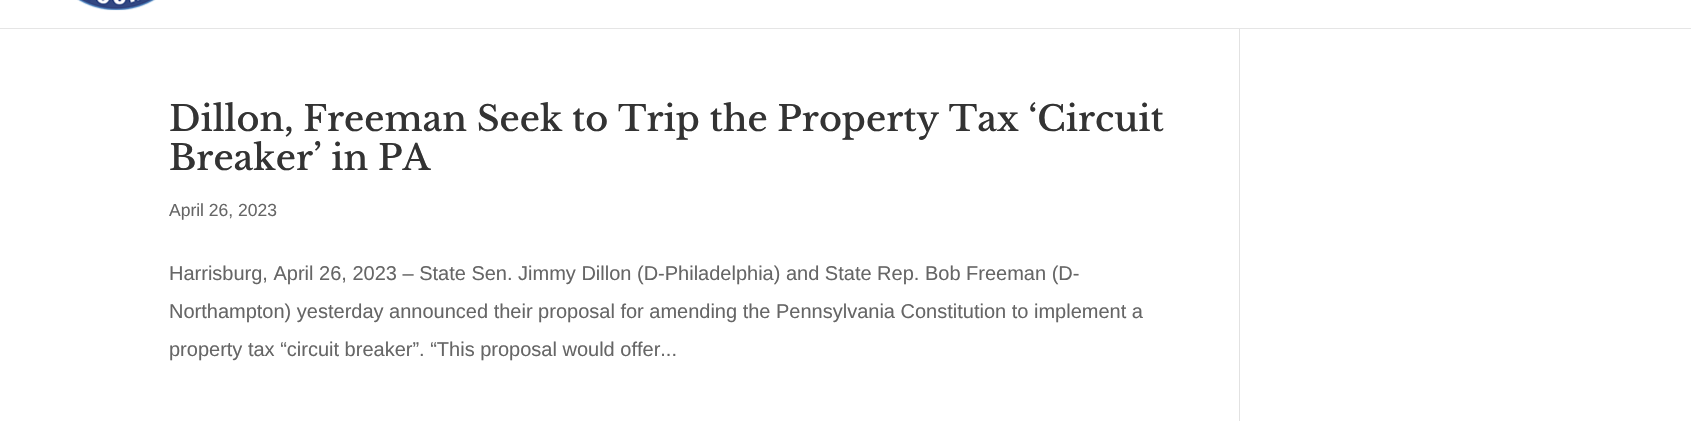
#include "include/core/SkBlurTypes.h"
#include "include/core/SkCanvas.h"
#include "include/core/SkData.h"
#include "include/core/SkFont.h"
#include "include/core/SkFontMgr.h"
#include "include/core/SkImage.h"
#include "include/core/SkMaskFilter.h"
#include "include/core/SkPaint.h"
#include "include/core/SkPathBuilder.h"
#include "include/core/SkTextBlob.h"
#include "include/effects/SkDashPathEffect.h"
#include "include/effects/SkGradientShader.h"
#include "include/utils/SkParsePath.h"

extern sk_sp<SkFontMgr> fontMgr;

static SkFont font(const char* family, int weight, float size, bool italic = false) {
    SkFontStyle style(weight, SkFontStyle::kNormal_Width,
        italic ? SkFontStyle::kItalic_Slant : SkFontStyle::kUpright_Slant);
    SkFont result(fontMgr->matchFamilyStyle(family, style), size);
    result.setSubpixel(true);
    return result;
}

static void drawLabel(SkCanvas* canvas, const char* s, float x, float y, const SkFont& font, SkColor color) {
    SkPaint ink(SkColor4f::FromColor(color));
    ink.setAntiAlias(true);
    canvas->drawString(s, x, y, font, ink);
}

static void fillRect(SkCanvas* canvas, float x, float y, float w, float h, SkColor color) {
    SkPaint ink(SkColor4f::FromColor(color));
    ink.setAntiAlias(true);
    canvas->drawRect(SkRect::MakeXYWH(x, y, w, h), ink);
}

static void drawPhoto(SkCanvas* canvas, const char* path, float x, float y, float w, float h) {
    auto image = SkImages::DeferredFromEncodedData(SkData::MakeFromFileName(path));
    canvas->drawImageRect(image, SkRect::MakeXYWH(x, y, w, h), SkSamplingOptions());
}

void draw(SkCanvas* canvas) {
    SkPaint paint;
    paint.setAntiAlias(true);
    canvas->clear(0xFFFFFFFF);
    fillRect(canvas, 0, 28, 1691, 1, 0xFFE5E5E5);
    drawPhoto(canvas, "assets/img1.png", 77, 0, 79, 11);
    SkFont font1 = font("Libre Baskerville", 500, 35);
    drawLabel(canvas, "Dillon, Freeman Seek to Trip the Property Tax ‘Circuit", 169, 131, font1, 0xFF333333);
    drawLabel(canvas, "Breaker’ in PA", 169, 170, font1, 0xFF333333);
    SkFont font2 = font("Liberation Sans", 400, 17.5f);
    drawLabel(canvas, "April 26, 2023", 169, 216, font2, 0xFF666666);
    SkFont font3 = font("Liberation Sans", 400, 20);
    drawLabel(canvas, "Harrisburg, April 26, 2023 – State Sen. Jimmy Dillon (D-Philadelphia) and State Rep. Bob Freeman (D-", 169, 280, font3, 0xFF666666);
    drawLabel(canvas, "Northampton) yesterday announced their proposal for amending the Pennsylvania Constitution to implement a", 169, 318, font3, 0xFF666666);
    drawLabel(canvas, "property tax “circuit breaker”. “This proposal would offer...", 169, 356, font3, 0xFF666666);
    fillRect(canvas, 1239, 29, 1, 392, 0xFFE2E2E2);
}
